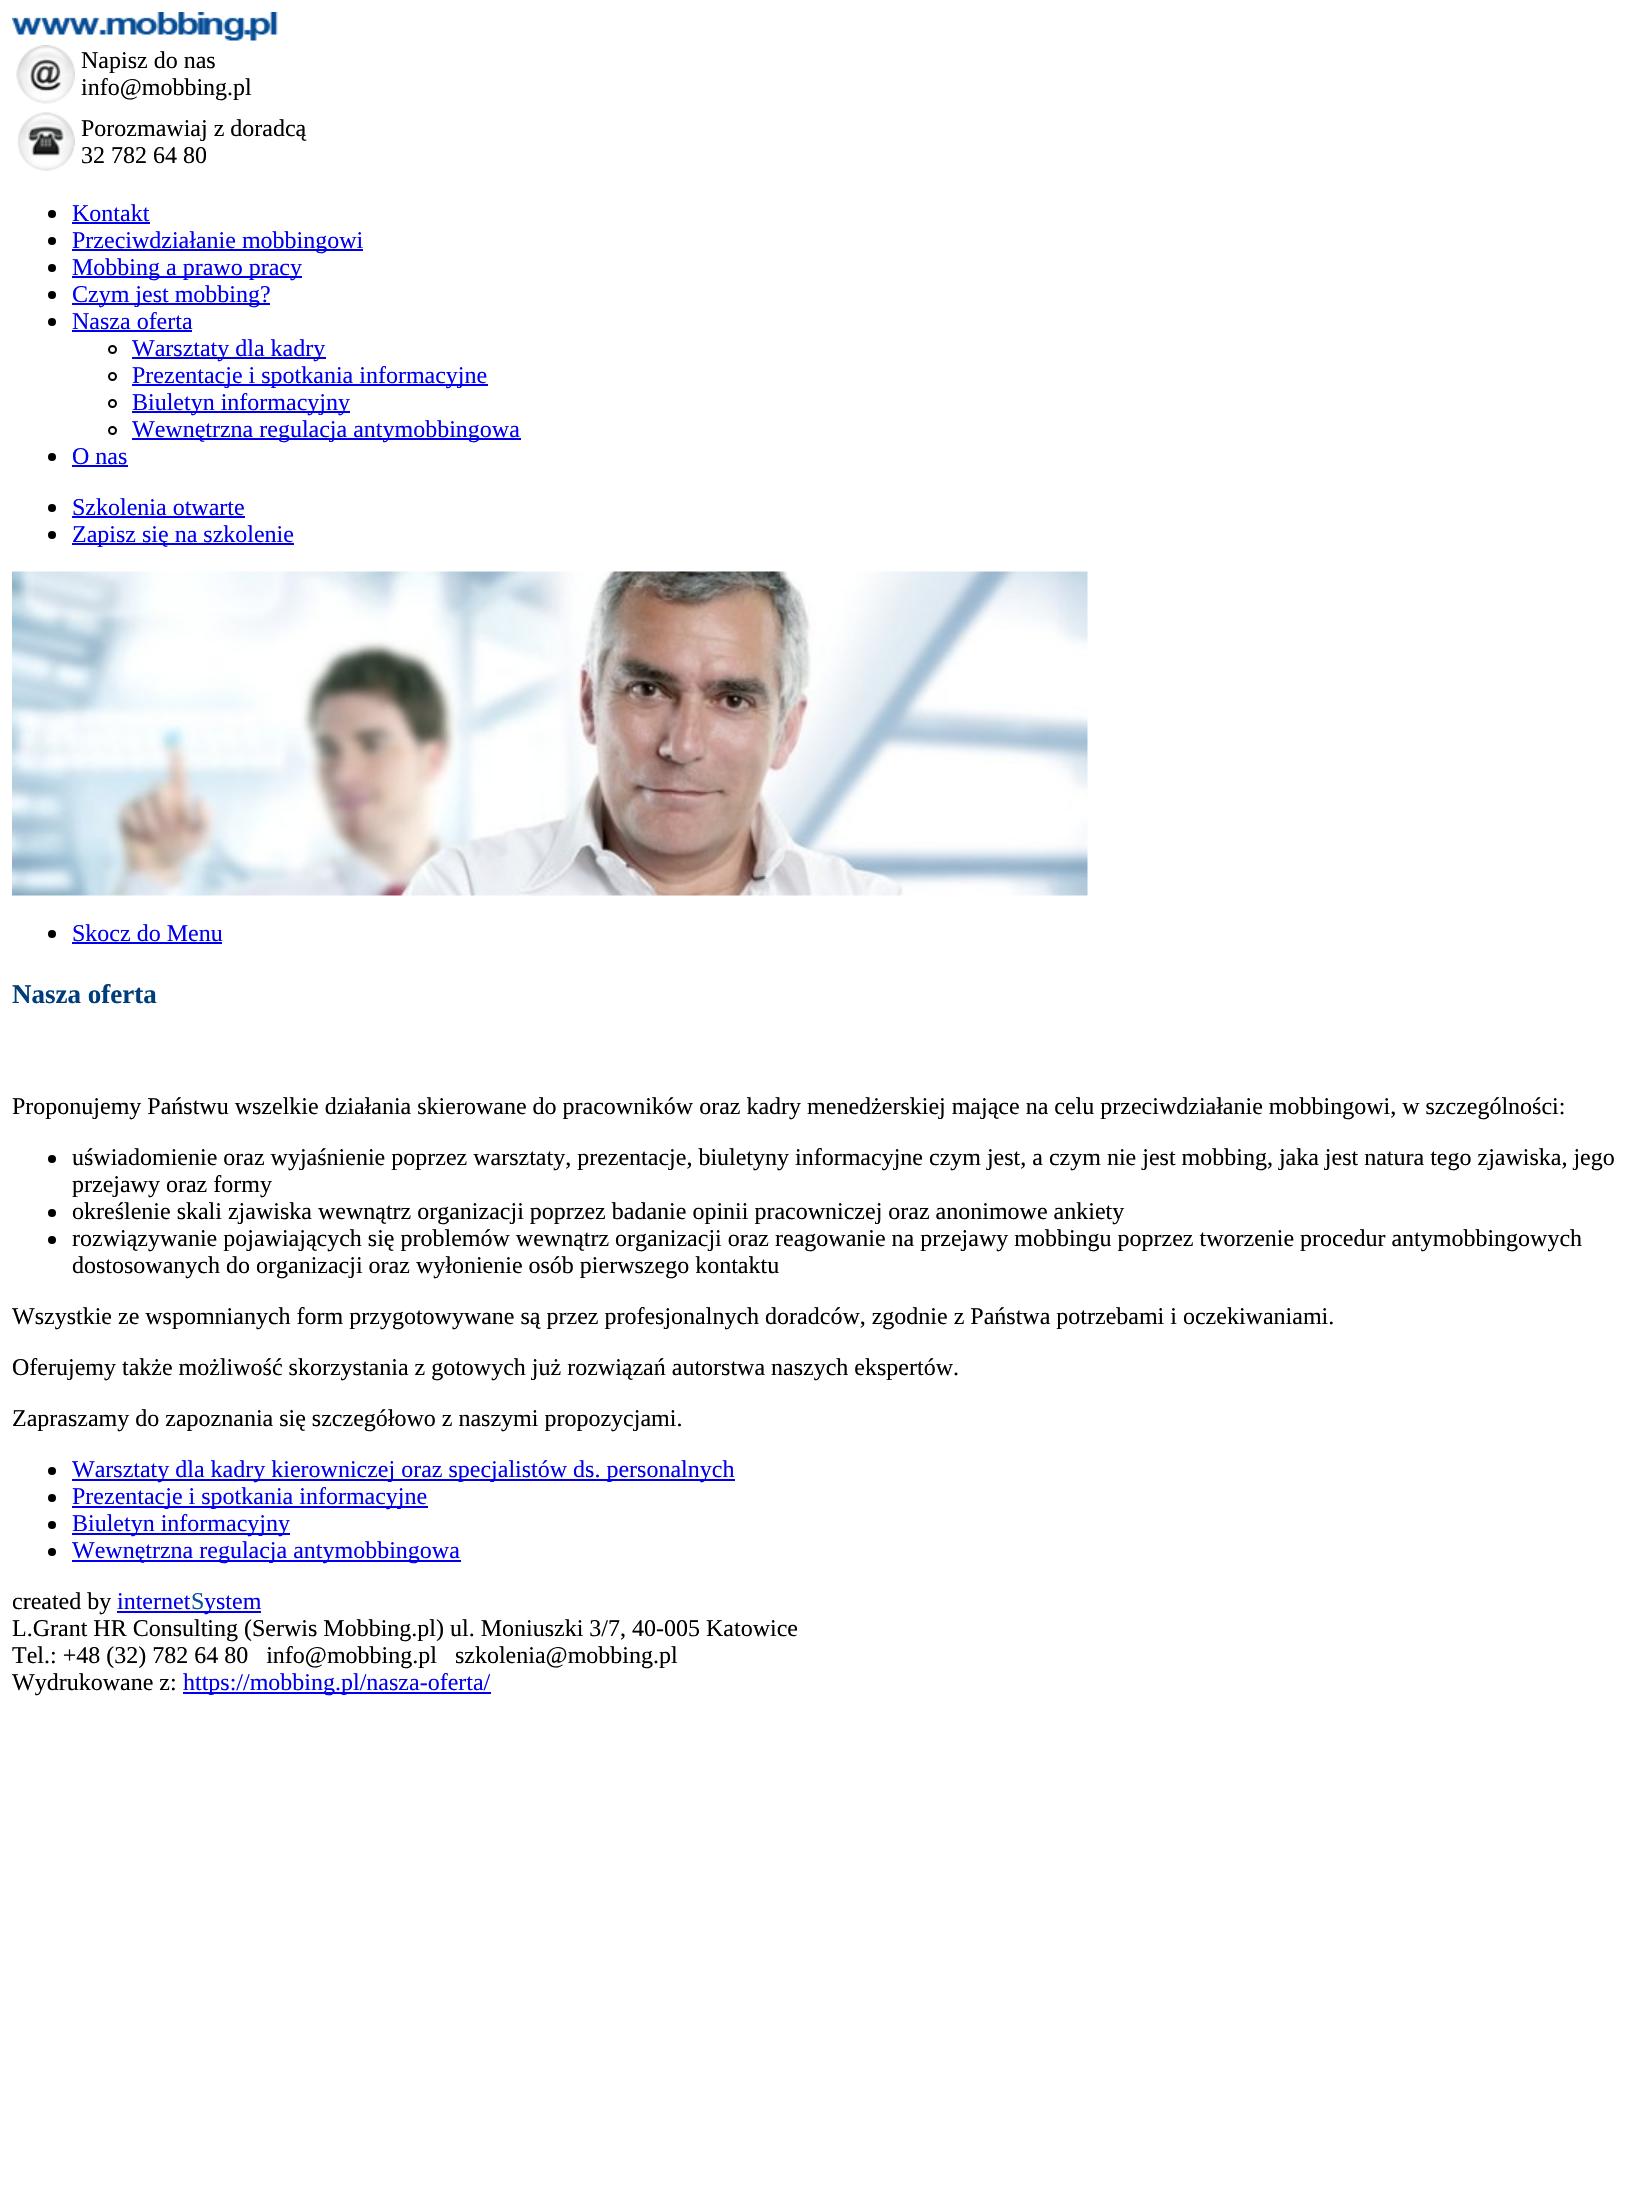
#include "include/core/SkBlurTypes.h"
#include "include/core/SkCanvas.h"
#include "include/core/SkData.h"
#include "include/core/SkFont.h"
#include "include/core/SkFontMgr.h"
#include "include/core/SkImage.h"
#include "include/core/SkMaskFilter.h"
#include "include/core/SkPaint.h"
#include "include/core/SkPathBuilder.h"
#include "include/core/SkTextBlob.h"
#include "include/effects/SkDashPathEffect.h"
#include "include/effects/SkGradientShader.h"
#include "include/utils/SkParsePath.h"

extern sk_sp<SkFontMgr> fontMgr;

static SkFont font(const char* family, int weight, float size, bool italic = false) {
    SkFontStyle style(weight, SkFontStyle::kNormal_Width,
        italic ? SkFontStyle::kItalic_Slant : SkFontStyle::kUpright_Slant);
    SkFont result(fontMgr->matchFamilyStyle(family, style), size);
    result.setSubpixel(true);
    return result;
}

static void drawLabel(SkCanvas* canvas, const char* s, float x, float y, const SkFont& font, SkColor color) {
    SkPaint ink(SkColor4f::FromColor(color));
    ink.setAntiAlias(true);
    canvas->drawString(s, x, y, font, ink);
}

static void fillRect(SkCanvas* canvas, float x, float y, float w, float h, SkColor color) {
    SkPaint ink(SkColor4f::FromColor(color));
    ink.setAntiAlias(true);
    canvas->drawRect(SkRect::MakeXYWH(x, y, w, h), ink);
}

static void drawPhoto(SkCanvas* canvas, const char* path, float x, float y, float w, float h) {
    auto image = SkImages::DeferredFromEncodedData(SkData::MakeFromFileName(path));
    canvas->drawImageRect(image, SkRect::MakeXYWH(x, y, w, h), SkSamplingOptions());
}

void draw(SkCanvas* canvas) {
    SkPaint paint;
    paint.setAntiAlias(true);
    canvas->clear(0xFFFFFFFF);
    drawPhoto(canvas, "assets/img1.png", 12, 12, 266, 29);
    drawPhoto(canvas, "assets/img2.png", 16, 45, 59, 59);
    SkFont font1 = font("Liberation Serif", 400, 24);
    drawLabel(canvas, "Napisz do nas", 81, 68, font1, 0xFF000000);
    drawLabel(canvas, "info@mobbing.pl", 81, 95, font1, 0xFF000000);
    drawPhoto(canvas, "assets/img3.png", 17, 112, 58, 59);
    drawLabel(canvas, "Porozmawiaj z doradcą", 81, 136, font1, 0xFF000000);
    drawLabel(canvas, "32 782 64 80", 81, 163, font1, 0xFF000000);
    paint.setColor(0xFF000000);
    canvas->drawCircle(52, 214, 4, paint);
    drawLabel(canvas, "Kontakt", 72, 221, font1, 0xFF0000EE);
    fillRect(canvas, 72, 222, 78, 2, 0xFF0000EE);
    canvas->drawCircle(52, 241, 4, paint);
    fillRect(canvas, 72, 249, 291, 2, 0xFF0000EE);
    drawLabel(canvas, "Przeciwdziałanie mobbingowi", 72, 248, font1, 0xFF0000EE);
    canvas->drawCircle(52, 268, 4, paint);
    fillRect(canvas, 72, 276, 230, 2, 0xFF0000EE);
    drawLabel(canvas, "Mobbing a prawo pracy", 72, 275, font1, 0xFF0000EE);
    canvas->drawCircle(52, 295, 4, paint);
    fillRect(canvas, 72, 303, 198, 2, 0xFF0000EE);
    drawLabel(canvas, "Czym jest mobbing?", 72, 302, font1, 0xFF0000EE);
    canvas->drawCircle(52, 322, 4, paint);
    drawLabel(canvas, "Nasza oferta", 72, 329, font1, 0xFF0000EE);
    fillRect(canvas, 72, 330, 120, 2, 0xFF0000EE);
    paint.setStroke(true);
    paint.setStrokeWidth(2);
    canvas->drawCircle(112.5f, 349.5f, 3.5f, paint);
    fillRect(canvas, 132, 357, 194, 2, 0xFF0000EE);
    drawLabel(canvas, "Warsztaty dla kadry", 132, 356, font1, 0xFF0000EE);
    canvas->drawCircle(112.5f, 376.5f, 3.5f, paint);
    fillRect(canvas, 132, 384, 356, 2, 0xFF0000EE);
    drawLabel(canvas, "Prezentacje i spotkania informacyjne", 132, 383, font1, 0xFF0000EE);
    canvas->drawCircle(112.5f, 403.5f, 3.5f, paint);
    fillRect(canvas, 132, 411, 218, 2, 0xFF0000EE);
    drawLabel(canvas, "Biuletyn informacyjny", 132, 410, font1, 0xFF0000EE);
    canvas->drawCircle(112.5f, 430.5f, 3.5f, paint);
    fillRect(canvas, 132, 438, 389, 2, 0xFF0000EE);
    drawLabel(canvas, "Wewnętrzna regulacja antymobbingowa", 132, 437, font1, 0xFF0000EE);
    paint.setStroke(false);
    canvas->drawCircle(52, 457, 4, paint);
    drawLabel(canvas, "O nas", 72, 464, font1, 0xFF0000EE);
    fillRect(canvas, 72, 465, 56, 2, 0xFF0000EE);
    canvas->drawCircle(52, 508, 4, paint);
    drawLabel(canvas, "Szkolenia otwarte", 72, 515, font1, 0xFF0000EE);
    fillRect(canvas, 72, 516, 173, 2, 0xFF0000EE);
    canvas->drawCircle(52, 535, 4, paint);
    fillRect(canvas, 72, 543, 222, 2, 0xFF0000EE);
    drawLabel(canvas, "Zapisz się na szkolenie", 72, 542, font1, 0xFF0000EE);
    drawPhoto(canvas, "assets/img4.png", 12, 571, 1076, 325);
    canvas->drawCircle(52, 934, 4, paint);
    drawLabel(canvas, "Skocz do Menu", 72, 941, font1, 0xFF0000EE);
    fillRect(canvas, 72, 942, 150, 2, 0xFF0000EE);
    SkFont font2 = font("Liberation Serif", 700, 27);
    drawLabel(canvas, "Nasza oferta", 12, 1003, font2, 0xFF003D7A);
    drawLabel(canvas, "Proponujemy Państwu wszelkie działania skierowane do pracowników oraz kadry menedżerskiej mające na celu przeciwdziałanie mobbingowi, w szczególności:", 12, 1114, font1, 0xFF000000);
    canvas->drawCircle(52, 1159, 4, paint);
    drawLabel(canvas, "uświadomienie oraz wyjaśnienie poprzez warsztaty, prezentacje, biuletyny informacyjne czym jest, a czym nie jest mobbing, jaka jest natura tego zjawiska, jego", 72, 1165, font1, 0xFF000000);
    drawLabel(canvas, "przejawy oraz formy", 72, 1192, font1, 0xFF000000);
    canvas->drawCircle(52, 1213, 4, paint);
    drawLabel(canvas, "określenie skali zjawiska wewnątrz organizacji poprzez badanie opinii pracowniczej oraz anonimowe ankiety", 72, 1219, font1, 0xFF000000);
    canvas->drawCircle(52, 1240, 4, paint);
    drawLabel(canvas, "rozwiązywanie pojawiających się problemów wewnątrz organizacji oraz reagowanie na przejawy mobbingu poprzez tworzenie procedur antymobbingowych", 72, 1246, font1, 0xFF000000);
    drawLabel(canvas, "dostosowanych do organizacji oraz wyłonienie osób pierwszego kontaktu", 72, 1273, font1, 0xFF000000);
    drawLabel(canvas, "Wszystkie ze wspomnianych form przygotowywane są przez profesjonalnych doradców, zgodnie z Państwa potrzebami i oczekiwaniami.", 12, 1324, font1, 0xFF000000);
    drawLabel(canvas, "Oferujemy także możliwość skorzystania z gotowych już rozwiązań autorstwa naszych ekspertów.", 12, 1375, font1, 0xFF000000);
    drawLabel(canvas, "Zapraszamy do zapoznania się szczegółowo z naszymi propozycjami.", 12, 1426, font1, 0xFF000000);
    canvas->drawCircle(52, 1471, 4, paint);
    fillRect(canvas, 72, 1479, 663, 2, 0xFF0000EE);
    drawLabel(canvas, "Warsztaty dla kadry kierowniczej oraz specjalistów ds. personalnych", 72, 1477, font1, 0xFF0000EE);
    canvas->drawCircle(52, 1498, 4, paint);
    fillRect(canvas, 72, 1506, 356, 2, 0xFF0000EE);
    drawLabel(canvas, "Prezentacje i spotkania informacyjne", 72, 1504, font1, 0xFF0000EE);
    canvas->drawCircle(52, 1525, 4, paint);
    fillRect(canvas, 72, 1533, 218, 2, 0xFF0000EE);
    drawLabel(canvas, "Biuletyn informacyjny", 72, 1531, font1, 0xFF0000EE);
    canvas->drawCircle(52, 1552, 4, paint);
    fillRect(canvas, 72, 1560, 389, 2, 0xFF0000EE);
    drawLabel(canvas, "Wewnętrzna regulacja antymobbingowa", 72, 1558, font1, 0xFF0000EE);
    drawLabel(canvas, "created by", 12, 1609, font1, 0xFF000000);
    drawLabel(canvas, "internet", 117, 1609, font1, 0xFF0000EE);
    drawLabel(canvas, "S", 191, 1609, font1, 0xFF0A539C);
    fillRect(canvas, 117, 1611, 144, 2, 0xFF0000EE);
    drawLabel(canvas, "ystem", 204, 1609, font1, 0xFF0000EE);
    drawLabel(canvas, "L.Grant HR Consulting (Serwis Mobbing.pl) ul. Moniuszki 3/7, 40-005 Katowice", 12, 1636, font1, 0xFF000000);
    drawLabel(canvas, "Tel.: +48 (32) 782 64 80   info@mobbing.pl   szkolenia@mobbing.pl", 12, 1663, font1, 0xFF000000);
    drawLabel(canvas, "Wydrukowane z:", 12, 1690, font1, 0xFF000000);
    fillRect(canvas, 183, 1692, 308, 2, 0xFF0000EE);
    drawLabel(canvas, "https://mobbing.pl/nasza-oferta/", 183, 1690, font1, 0xFF0000EE);
}
